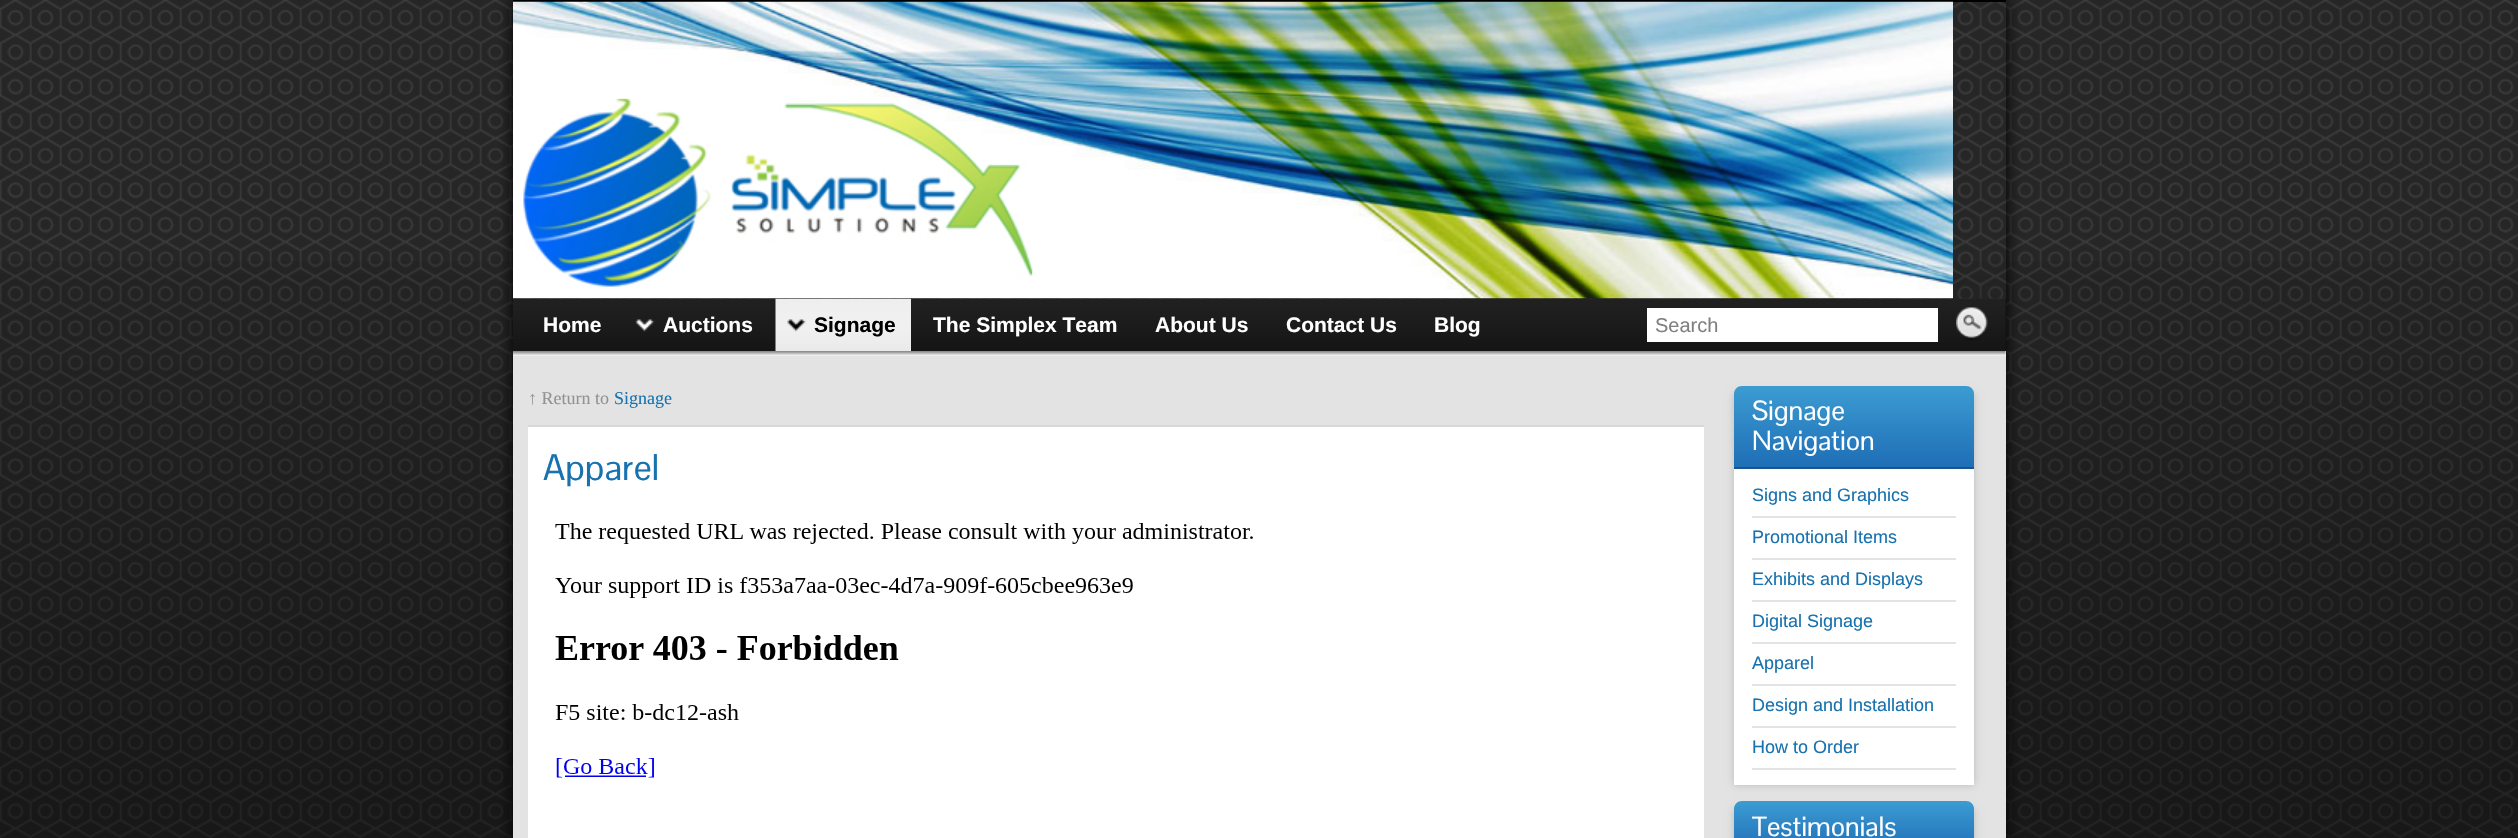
#include "include/core/SkBlurTypes.h"
#include "include/core/SkCanvas.h"
#include "include/core/SkData.h"
#include "include/core/SkFont.h"
#include "include/core/SkFontMgr.h"
#include "include/core/SkImage.h"
#include "include/core/SkMaskFilter.h"
#include "include/core/SkPaint.h"
#include "include/core/SkPathBuilder.h"
#include "include/core/SkTextBlob.h"
#include "include/effects/SkDashPathEffect.h"
#include "include/effects/SkGradientShader.h"
#include "include/utils/SkParsePath.h"

extern sk_sp<SkFontMgr> fontMgr;

static SkFont font(const char* family, int weight, float size, bool italic = false) {
    SkFontStyle style(weight, SkFontStyle::kNormal_Width,
        italic ? SkFontStyle::kItalic_Slant : SkFontStyle::kUpright_Slant);
    SkFont result(fontMgr->matchFamilyStyle(family, style), size);
    result.setSubpixel(true);
    return result;
}

static void drawLabel(SkCanvas* canvas, const char* s, float x, float y, const SkFont& font, SkColor color) {
    SkPaint ink(SkColor4f::FromColor(color));
    ink.setAntiAlias(true);
    canvas->drawString(s, x, y, font, ink);
}

static void fillRect(SkCanvas* canvas, float x, float y, float w, float h, SkColor color) {
    SkPaint ink(SkColor4f::FromColor(color));
    ink.setAntiAlias(true);
    canvas->drawRect(SkRect::MakeXYWH(x, y, w, h), ink);
}

static void drawPhoto(SkCanvas* canvas, const char* path, float x, float y, float w, float h) {
    auto image = SkImages::DeferredFromEncodedData(SkData::MakeFromFileName(path));
    canvas->drawImageRect(image, SkRect::MakeXYWH(x, y, w, h), SkSamplingOptions());
}

static SkPath parsePath(const char* data, bool evenOdd = false) {
    SkPath result = *SkParsePath::FromSVGString(data);
    if (evenOdd) result.setFillType(SkPathFillType::kEvenOdd);
    return result;
}

void draw(SkCanvas* canvas) {
    SkPaint paint;
    paint.setAntiAlias(true);
    canvas->clear(0xFFFFFFFF);
    drawPhoto(canvas, "assets/img1.png", 0, 0, 2518, 838);
    drawPhoto(canvas, "assets/img2.png", 0, 261, 2518, 577);
    canvas->save();
    canvas->clipPath(parsePath("M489 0H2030V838H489ZM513 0H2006V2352H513Z", true), true);
    paint.setColor(0xFF000000);
    paint.setMaskFilter(SkMaskFilter::MakeBlur(kNormal_SkBlurStyle, 7.5f));
    canvas->drawRect(SkRect::MakeXYWH(513, 0, 1493, 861), paint);
    paint.setMaskFilter(nullptr);
    canvas->restore();
    fillRect(canvas, 513, 0, 1493, 2, 0xFF000000);
    drawPhoto(canvas, "assets/img3.png", 513, 1, 1440, 298);
    fillRect(canvas, 2005, 299, 1, 52, 0xFF101010);
    drawPhoto(canvas, "assets/img4.png", 513, 298, 1493, 53);
    SkFont font1 = font("Liberation Sans", 700, 21);
    drawLabel(canvas, "Home", 543, 332, font1, 0xFFFFFFFF);
    drawPhoto(canvas, "assets/img5.png", 635, 319, 20, 13);
    drawLabel(canvas, "Auctions", 663, 332, font1, 0xFFFFFFFF);
    fillRect(canvas, 910, 299, 1, 52, 0xFFEEEEEE);
    drawPhoto(canvas, "assets/img6.png", 775, 298, 136, 53);
    drawPhoto(canvas, "assets/img7.png", 787, 319, 19, 13);
    drawLabel(canvas, "Signage", 814, 332, font1, 0xFF000000);
    drawLabel(canvas, "The Simplex Team", 933, 332, font1, 0xFFFFFFFF);
    drawLabel(canvas, "About Us", 1155, 332, font1, 0xFFFFFFFF);
    drawLabel(canvas, "Contact Us", 1286, 332, font1, 0xFFFFFFFF);
    drawLabel(canvas, "Blog", 1434, 332, font1, 0xFFFFFFFF);
    fillRect(canvas, 1647, 308, 291, 34, 0xFFFFFFFF);
    SkFont font2 = font("Liberation Sans", 400, 20);
    drawLabel(canvas, "Search", 1655, 332, font2, 0xFF808080);
    drawPhoto(canvas, "assets/img8.png", 1956, 307, 32, 34);
    fillRect(canvas, 513, 351, 1493, 5, 0xFFEEEEEE);
    drawPhoto(canvas, "assets/img9.png", 513, 351, 1493, 4);
    fillRect(canvas, 513, 356, 1493, 482, 0xFFE3E3E3);
    SkFont font3 = font("Liberation Serif", 400, 18);
    drawLabel(canvas, "↑ Return to", 528, 404, font3, 0xFF929292);
    drawLabel(canvas, "Signage", 614, 404, font3, 0xFF1772AF);
    fillRect(canvas, 528, 427, 1176, 411, 0xFFFFFFFF);
    fillRect(canvas, 528, 425, 1176, 2, 0xFFD8D8D8);
    SkFont font4 = font("Pontano Sans", 400, 36);
    drawLabel(canvas, "Apparel", 543, 480, font4, 0xFF1772AF);
    drawPhoto(canvas, "assets/img10.png", 555, 523, 698, 255);
    paint.setColor(0xFFBBBBBB);
    paint.setMaskFilter(SkMaskFilter::MakeBlur(kNormal_SkBlurStyle, 4));
    canvas->drawRect(SkRect::MakeXYWH(1734, 393, 240, 392), paint);
    paint.setMaskFilter(nullptr);
    fillRect(canvas, 1734, 393, 240, 392, 0xFFFFFFFF);
    {
        const SkColor colors[] = {0xFF3C9CD2, 0xFF1F6EB6};
        const float stops[] = {0, 1};
        const SkPoint ends[] = {{1854, 386}, {1854, 467}};
        paint.setShader(SkGradientShader::MakeLinear(ends, colors, stops, 2, SkTileMode::kClamp));
        paint.setAlpha(255);
    }
    canvas->drawPath(parsePath("M1742 386H1966C1970.5 386 1974 389.5 1974 394V467H1734V394C1734 389.5 1737.5 386 1742 386Z"), paint);
    fillRect(canvas, 1734, 467, 240, 2, 0xFF195392);
    SkFont font5 = font("Pontano Sans", 400, 27);
    drawLabel(canvas, "Signage", 1752, 420, font5, 0xFFFFFFFF);
    drawLabel(canvas, "Navigation", 1752, 450, font5, 0xFFFFFFFF);
    fillRect(canvas, 1752, 516, 204, 2, 0xFFE3E3E3);
    SkFont font6 = font("Liberation Sans", 400, 18);
    drawLabel(canvas, "Signs and Graphics", 1752, 501, font6, 0xFF1772AF);
    fillRect(canvas, 1752, 558, 204, 2, 0xFFE3E3E3);
    drawLabel(canvas, "Promotional Items", 1752, 543, font6, 0xFF1772AF);
    fillRect(canvas, 1752, 600, 204, 2, 0xFFE3E3E3);
    drawLabel(canvas, "Exhibits and Displays", 1752, 585, font6, 0xFF1772AF);
    fillRect(canvas, 1752, 642, 204, 2, 0xFFE3E3E3);
    drawLabel(canvas, "Digital Signage", 1752, 627, font6, 0xFF1772AF);
    fillRect(canvas, 1752, 684, 204, 2, 0xFFE3E3E3);
    drawLabel(canvas, "Apparel", 1752, 669, font6, 0xFF1772AF);
    fillRect(canvas, 1752, 726, 204, 2, 0xFFE3E3E3);
    drawLabel(canvas, "Design and Installation", 1752, 711, font6, 0xFF1772AF);
    fillRect(canvas, 1752, 768, 204, 2, 0xFFE3E3E3);
    drawLabel(canvas, "How to Order", 1752, 753, font6, 0xFF1772AF);
    paint.setShader(nullptr);
    paint.setColor(0xFFBBBBBB);
    paint.setMaskFilter(SkMaskFilter::MakeBlur(kNormal_SkBlurStyle, 4));
    canvas->drawRect(SkRect::MakeXYWH(1734, 809, 240, 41), paint);
    paint.setMaskFilter(nullptr);
    {
        const SkColor colors[] = {0xFF3C9CD2, 0xFF1F6EB6};
        const float stops[] = {0, 1};
        const SkPoint ends[] = {{1854, 801}, {1854, 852}};
        paint.setShader(SkGradientShader::MakeLinear(ends, colors, stops, 2, SkTileMode::kClamp));
        paint.setAlpha(255);
    }
    canvas->drawPath(parsePath("M1742 801H1966C1970.5 801 1974 804.5 1974 809V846H1734V809C1734 804.5 1737.5 801 1742 801Z"), paint);
    drawLabel(canvas, "Testimonials", 1752, 836, font5, 0xFFFFFFFF);
}
